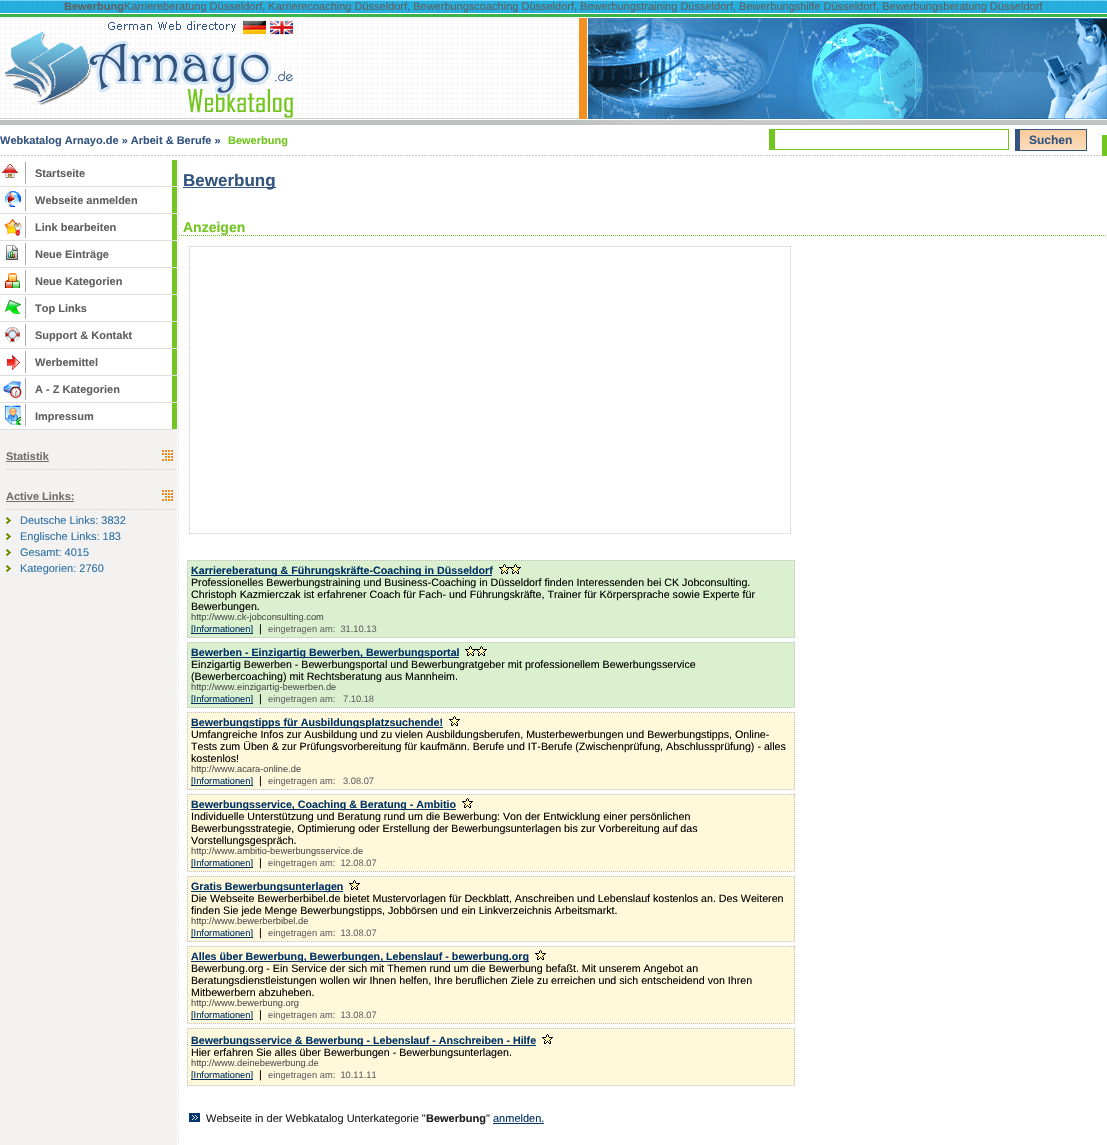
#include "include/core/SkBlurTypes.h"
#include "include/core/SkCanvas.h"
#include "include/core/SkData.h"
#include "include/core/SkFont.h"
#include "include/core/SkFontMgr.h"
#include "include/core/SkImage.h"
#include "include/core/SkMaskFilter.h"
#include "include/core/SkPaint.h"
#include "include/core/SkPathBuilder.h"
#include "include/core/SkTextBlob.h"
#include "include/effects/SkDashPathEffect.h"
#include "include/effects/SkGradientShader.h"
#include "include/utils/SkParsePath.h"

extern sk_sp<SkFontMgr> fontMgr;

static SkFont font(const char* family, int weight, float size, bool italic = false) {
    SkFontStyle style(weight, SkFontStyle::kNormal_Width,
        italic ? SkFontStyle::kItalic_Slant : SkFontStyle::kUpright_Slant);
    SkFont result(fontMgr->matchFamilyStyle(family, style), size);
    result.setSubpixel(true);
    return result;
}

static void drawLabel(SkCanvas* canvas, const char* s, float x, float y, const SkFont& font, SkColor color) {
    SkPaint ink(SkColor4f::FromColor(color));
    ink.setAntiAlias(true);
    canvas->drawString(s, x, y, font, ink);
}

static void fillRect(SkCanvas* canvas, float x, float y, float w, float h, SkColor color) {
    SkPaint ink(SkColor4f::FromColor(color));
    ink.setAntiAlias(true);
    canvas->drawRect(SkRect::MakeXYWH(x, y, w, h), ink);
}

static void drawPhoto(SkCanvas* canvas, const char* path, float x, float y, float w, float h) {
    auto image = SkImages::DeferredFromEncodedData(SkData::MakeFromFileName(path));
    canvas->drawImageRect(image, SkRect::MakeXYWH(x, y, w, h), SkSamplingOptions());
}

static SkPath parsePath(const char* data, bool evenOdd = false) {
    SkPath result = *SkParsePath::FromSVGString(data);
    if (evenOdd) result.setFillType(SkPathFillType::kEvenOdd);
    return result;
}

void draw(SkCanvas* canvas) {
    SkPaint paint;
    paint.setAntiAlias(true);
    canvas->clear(0xFFFFFFFF);
    drawPhoto(canvas, "assets/img1.png", 0, 0, 1107, 17);
    SkFont font1 = font("Liberation Sans", 700, 11);
    drawLabel(canvas, "Bewerbung", 64, 10, font1, 0xFF5F5F5F);
    SkFont font2 = font("Liberation Sans", 400, 11);
    drawLabel(canvas, "Karriereberatung Düsseldorf, Karrierecoaching Düsseldorf, Bewerbungscoaching Düsseldorf, Bewerbungstraining Düsseldorf, Bewerbungshilfe Düsseldorf, Bewerbungsberatung Düsseldorf", 124, 10, font2, 0xFF5F5F5F);
    drawPhoto(canvas, "assets/img2.png", 0, 17, 579, 108);
    drawPhoto(canvas, "assets/img3.png", 0, 17, 293, 101);
    drawPhoto(canvas, "assets/img4.png", 579, 17, 528, 108);
    drawPhoto(canvas, "assets/img5.png", 1, 155, 1101, 1);
    drawLabel(canvas, "Webkatalog Arnayo.de » Arbeit & Berufe »", 0, 144, font1, 0xFF33547F);
    drawLabel(canvas, "Bewerbung", 228, 144, font1, 0xFF72C61F);
    fillRect(canvas, 1102, 135, 5, 21, 0xFF72C61F);
    fillRect(canvas, 769, 129, 240, 1, 0xFF72C61F);
    fillRect(canvas, 1008, 129, 1, 21, 0xFF72C61F);
    fillRect(canvas, 769, 149, 240, 1, 0xFF72C61F);
    fillRect(canvas, 769, 129, 6, 21, 0xFF72C61F);
    drawPhoto(canvas, "assets/img6.png", 1015, 129, 72, 22);
    SkFont font3 = font("Liberation Sans", 700, 12);
    drawLabel(canvas, "Suchen", 1029, 144, font3, 0xFF33547F);
    fillRect(canvas, 0, 430, 177, 715, 0xFFF3F2F1);
    drawPhoto(canvas, "assets/img7.png", 177, 160, 2, 985);
    drawPhoto(canvas, "assets/img8.png", 0, 160, 177, 27);
    drawPhoto(canvas, "assets/img9.png", 2, 162, 24, 22);
    drawLabel(canvas, "Startseite", 35, 177, font1, 0xFF5F5F5F);
    drawPhoto(canvas, "assets/img8.png", 0, 187, 177, 27);
    drawPhoto(canvas, "assets/img10.png", 5, 189, 21, 22);
    drawLabel(canvas, "Webseite anmelden", 35, 204, font1, 0xFF5F5F5F);
    drawPhoto(canvas, "assets/img8.png", 0, 214, 177, 27);
    drawPhoto(canvas, "assets/img11.png", 4, 216, 22, 22);
    drawLabel(canvas, "Link bearbeiten", 35, 231, font1, 0xFF5F5F5F);
    drawPhoto(canvas, "assets/img8.png", 0, 241, 177, 27);
    drawPhoto(canvas, "assets/img12.png", 5, 243, 21, 22);
    drawLabel(canvas, "Neue Einträge", 35, 258, font1, 0xFF5F5F5F);
    drawPhoto(canvas, "assets/img8.png", 0, 268, 177, 27);
    drawPhoto(canvas, "assets/img13.png", 5, 270, 21, 22);
    drawLabel(canvas, "Neue Kategorien", 35, 285, font1, 0xFF5F5F5F);
    drawPhoto(canvas, "assets/img8.png", 0, 295, 177, 27);
    drawPhoto(canvas, "assets/img14.png", 4, 297, 22, 22);
    drawLabel(canvas, "Top Links", 35, 312, font1, 0xFF5F5F5F);
    drawPhoto(canvas, "assets/img8.png", 0, 322, 177, 27);
    drawPhoto(canvas, "assets/img15.png", 5, 324, 21, 22);
    drawLabel(canvas, "Support & Kontakt", 35, 339, font1, 0xFF5F5F5F);
    drawPhoto(canvas, "assets/img8.png", 0, 349, 177, 27);
    drawPhoto(canvas, "assets/img16.png", 7, 351, 19, 22);
    drawLabel(canvas, "Werbemittel", 35, 366, font1, 0xFF5F5F5F);
    drawPhoto(canvas, "assets/img8.png", 0, 376, 177, 27);
    drawPhoto(canvas, "assets/img17.png", 3, 378, 23, 22);
    drawLabel(canvas, "A - Z Kategorien", 35, 393, font1, 0xFF5F5F5F);
    drawPhoto(canvas, "assets/img8.png", 0, 403, 177, 27);
    drawPhoto(canvas, "assets/img18.png", 5, 404, 21, 22);
    drawLabel(canvas, "Impressum", 35, 420, font1, 0xFF5F5F5F);
    drawPhoto(canvas, "assets/img19.png", 6, 450, 170, 20);
    drawLabel(canvas, "Statistik", 6, 460, font1, 0xFF70706F);
    fillRect(canvas, 6, 461, 43, 1, 0xFF70706F);
    drawPhoto(canvas, "assets/img19.png", 6, 490, 170, 20);
    drawLabel(canvas, "Active Links:", 6, 500, font1, 0xFF70706F);
    fillRect(canvas, 6, 501, 68, 1, 0xFF70706F);
    drawPhoto(canvas, "assets/img20.png", 6, 517, 5, 7);
    drawLabel(canvas, "Deutsche Links: 3832", 20, 524, font2, 0xFF2C70A7);
    drawPhoto(canvas, "assets/img20.png", 6, 533, 5, 7);
    drawLabel(canvas, "Englische Links: 183", 20, 540, font2, 0xFF2C70A7);
    drawPhoto(canvas, "assets/img20.png", 6, 549, 5, 7);
    drawLabel(canvas, "Gesamt: 4015", 20, 556, font2, 0xFF2C70A7);
    drawPhoto(canvas, "assets/img20.png", 6, 565, 5, 7);
    drawLabel(canvas, "Kategorien: 2760", 20, 572, font2, 0xFF2C70A7);
    fillRect(canvas, 183, 187, 93, 1, 0xFF33547F);
    SkFont font4 = font("Liberation Sans", 700, 17);
    drawLabel(canvas, "Bewerbung", 183, 186, font4, 0xFF33547F);
    paint.setStroke(true);
    paint.setStrokeWidth(1);
    paint.setColor(0xFF72C61F);
    paint.setPathEffect(SkDashPathEffect::Make({{1, 1}}, 0));
    canvas->drawPath(parsePath("M179 235.5H1107"), paint);
    paint.setPathEffect(nullptr);
    SkFont font5 = font("Liberation Sans", 700, 14);
    drawLabel(canvas, "Anzeigen", 183, 232, font5, 0xFF72C61F);
    paint.setColor(0xFFCCCCCC);
    paint.setPathEffect(SkDashPathEffect::Make({{1, 1}}, 0));
    canvas->drawPath(parsePath("M189 246.5H791"), paint);
    paint.setPathEffect(nullptr);
    paint.setPathEffect(SkDashPathEffect::Make({{1, 1}}, 0));
    canvas->drawPath(parsePath("M790.5 246V534"), paint);
    paint.setPathEffect(nullptr);
    paint.setPathEffect(SkDashPathEffect::Make({{1, 1}}, 0));
    canvas->drawPath(parsePath("M189 533.5H791"), paint);
    paint.setPathEffect(nullptr);
    paint.setPathEffect(SkDashPathEffect::Make({{1, 1}}, 0));
    canvas->drawPath(parsePath("M189.5 246V534"), paint);
    paint.setPathEffect(nullptr);
    fillRect(canvas, 187, 560, 608, 78, 0xFFDBF0CE);
    paint.setColor(0xFFC0C0C0);
    paint.setPathEffect(SkDashPathEffect::Make({{1, 1}}, 0));
    canvas->drawPath(parsePath("M187 560.5H795"), paint);
    paint.setPathEffect(nullptr);
    paint.setPathEffect(SkDashPathEffect::Make({{1, 1}}, 0));
    canvas->drawPath(parsePath("M794.5 560V638"), paint);
    paint.setPathEffect(nullptr);
    paint.setPathEffect(SkDashPathEffect::Make({{1, 1}}, 0));
    canvas->drawPath(parsePath("M187 637.5H795"), paint);
    paint.setPathEffect(nullptr);
    paint.setPathEffect(SkDashPathEffect::Make({{1, 1}}, 0));
    canvas->drawPath(parsePath("M187.5 560V638"), paint);
    paint.setPathEffect(nullptr);
    fillRect(canvas, 191, 575, 301, 1, 0xFF003366);
    SkFont font6 = font("Liberation Sans", 700, 10.67f);
    drawLabel(canvas, "Karriereberatung & Führungskräfte-Coaching in Düsseldorf", 191, 574, font6, 0xFF003366);
    drawPhoto(canvas, "assets/img21.png", 499, 564, 22, 10);
    SkFont font7 = font("Liberation Sans", 400, 10.67f);
    drawLabel(canvas, "Professionelles Bewerbungstraining und Business-Coaching in Düsseldorf finden Interessenden bei CK Jobconsulting.", 191, 586, font7, 0xFF000000);
    drawLabel(canvas, "Christoph Kazmierczak ist erfahrener Coach für Fach- und Führungskräfte, Trainer für Körpersprache sowie Experte für", 191, 598, font7, 0xFF000000);
    drawLabel(canvas, "Bewerbungen.", 191, 610, font7, 0xFF000000);
    SkFont font8 = font("Liberation Sans", 400, 9.3f);
    drawLabel(canvas, "http://www.ck-jobconsulting.com", 191, 620, font8, 0xFF535353);
    fillRect(canvas, 191, 633, 62, 1, 0xFF003366);
    drawLabel(canvas, "[Informationen]", 191, 632, font8, 0xFF003366);
    drawLabel(canvas, "|", 259, 632, font7, 0xFF000000);
    drawLabel(canvas, "eingetragen am:  31.10.13", 268, 632, font8, 0xFF666666);
    fillRect(canvas, 187, 642, 608, 66, 0xFFDBF0CE);
    paint.setPathEffect(SkDashPathEffect::Make({{1, 1}}, 0));
    canvas->drawPath(parsePath("M187 642.5H795"), paint);
    paint.setPathEffect(nullptr);
    paint.setPathEffect(SkDashPathEffect::Make({{1, 1}}, 0));
    canvas->drawPath(parsePath("M794.5 642V708"), paint);
    paint.setPathEffect(nullptr);
    paint.setPathEffect(SkDashPathEffect::Make({{1, 1}}, 0));
    canvas->drawPath(parsePath("M187 707.5H795"), paint);
    paint.setPathEffect(nullptr);
    paint.setPathEffect(SkDashPathEffect::Make({{1, 1}}, 0));
    canvas->drawPath(parsePath("M187.5 642V708"), paint);
    paint.setPathEffect(nullptr);
    fillRect(canvas, 191, 657, 268, 1, 0xFF003366);
    drawLabel(canvas, "Bewerben - Einzigartig Bewerben, Bewerbungsportal", 191, 656, font6, 0xFF003366);
    drawPhoto(canvas, "assets/img21.png", 465, 646, 22, 10);
    drawLabel(canvas, "Einzigartig Bewerben - Bewerbungsportal und Bewerbungratgeber mit professionellem Bewerbungsservice", 191, 668, font7, 0xFF000000);
    drawLabel(canvas, "(Bewerbercoaching) mit Rechtsberatung aus Mannheim.", 191, 680, font7, 0xFF000000);
    drawLabel(canvas, "http://www.einzigartig-bewerben.de", 191, 690, font8, 0xFF535353);
    fillRect(canvas, 191, 703, 62, 1, 0xFF003366);
    drawLabel(canvas, "[Informationen]", 191, 702, font8, 0xFF003366);
    drawLabel(canvas, "|", 259, 702, font7, 0xFF000000);
    drawLabel(canvas, "eingetragen am:   7.10.18", 268, 702, font8, 0xFF666666);
    fillRect(canvas, 187, 712, 608, 78, 0xFFFFF8DB);
    paint.setPathEffect(SkDashPathEffect::Make({{1, 1}}, 0));
    canvas->drawPath(parsePath("M187 712.5H795"), paint);
    paint.setPathEffect(nullptr);
    paint.setPathEffect(SkDashPathEffect::Make({{1, 1}}, 0));
    canvas->drawPath(parsePath("M794.5 712V790"), paint);
    paint.setPathEffect(nullptr);
    paint.setPathEffect(SkDashPathEffect::Make({{1, 1}}, 0));
    canvas->drawPath(parsePath("M187 789.5H795"), paint);
    paint.setPathEffect(nullptr);
    paint.setPathEffect(SkDashPathEffect::Make({{1, 1}}, 0));
    canvas->drawPath(parsePath("M187.5 712V790"), paint);
    paint.setPathEffect(nullptr);
    fillRect(canvas, 191, 727, 252, 1, 0xFF003366);
    drawLabel(canvas, "Bewerbungstipps für Ausbildungsplatzsuchende!", 191, 726, font6, 0xFF003366);
    drawPhoto(canvas, "assets/img22.png", 449, 716, 11, 10);
    drawLabel(canvas, "Umfangreiche Infos zur Ausbildung und zu vielen Ausbildungsberufen, Musterbewerbungen und Bewerbungstipps, Online-", 191, 738, font7, 0xFF000000);
    drawLabel(canvas, "Tests zum Üben & zur Prüfungsvorbereitung für kaufmänn. Berufe und IT-Berufe (Zwischenprüfung, Abschlussprüfung) - alles", 191, 750, font7, 0xFF000000);
    drawLabel(canvas, "kostenlos!", 191, 762, font7, 0xFF000000);
    drawLabel(canvas, "http://www.acara-online.de", 191, 772, font8, 0xFF535353);
    fillRect(canvas, 191, 785, 62, 1, 0xFF003366);
    drawLabel(canvas, "[Informationen]", 191, 784, font8, 0xFF003366);
    drawLabel(canvas, "|", 259, 784, font7, 0xFF000000);
    drawLabel(canvas, "eingetragen am:   3.08.07", 268, 784, font8, 0xFF666666);
    fillRect(canvas, 187, 794, 608, 78, 0xFFFFF8DB);
    paint.setPathEffect(SkDashPathEffect::Make({{1, 1}}, 0));
    canvas->drawPath(parsePath("M187 794.5H795"), paint);
    paint.setPathEffect(nullptr);
    paint.setPathEffect(SkDashPathEffect::Make({{1, 1}}, 0));
    canvas->drawPath(parsePath("M794.5 794V872"), paint);
    paint.setPathEffect(nullptr);
    paint.setPathEffect(SkDashPathEffect::Make({{1, 1}}, 0));
    canvas->drawPath(parsePath("M187 871.5H795"), paint);
    paint.setPathEffect(nullptr);
    paint.setPathEffect(SkDashPathEffect::Make({{1, 1}}, 0));
    canvas->drawPath(parsePath("M187.5 794V872"), paint);
    paint.setPathEffect(nullptr);
    fillRect(canvas, 191, 809, 265, 1, 0xFF003366);
    drawLabel(canvas, "Bewerbungsservice, Coaching & Beratung - Ambitio", 191, 808, font6, 0xFF003366);
    drawPhoto(canvas, "assets/img22.png", 462, 798, 11, 10);
    drawLabel(canvas, "Individuelle Unterstützung und Beratung rund um die Bewerbung: Von der Entwicklung einer persönlichen", 191, 820, font7, 0xFF000000);
    drawLabel(canvas, "Bewerbungsstrategie, Optimierung oder Erstellung der Bewerbungsunterlagen bis zur Vorbereitung auf das", 191, 832, font7, 0xFF000000);
    drawLabel(canvas, "Vorstellungsgespräch.", 191, 844, font7, 0xFF000000);
    drawLabel(canvas, "http://www.ambitio-bewerbungsservice.de", 191, 854, font8, 0xFF535353);
    fillRect(canvas, 191, 867, 62, 1, 0xFF003366);
    drawLabel(canvas, "[Informationen]", 191, 866, font8, 0xFF003366);
    drawLabel(canvas, "|", 259, 866, font7, 0xFF000000);
    drawLabel(canvas, "eingetragen am:  12.08.07", 268, 866, font8, 0xFF666666);
    fillRect(canvas, 187, 876, 608, 66, 0xFFFFF8DB);
    paint.setPathEffect(SkDashPathEffect::Make({{1, 1}}, 0));
    canvas->drawPath(parsePath("M187 876.5H795"), paint);
    paint.setPathEffect(nullptr);
    paint.setPathEffect(SkDashPathEffect::Make({{1, 1}}, 0));
    canvas->drawPath(parsePath("M794.5 876V942"), paint);
    paint.setPathEffect(nullptr);
    paint.setPathEffect(SkDashPathEffect::Make({{1, 1}}, 0));
    canvas->drawPath(parsePath("M187 941.5H795"), paint);
    paint.setPathEffect(nullptr);
    paint.setPathEffect(SkDashPathEffect::Make({{1, 1}}, 0));
    canvas->drawPath(parsePath("M187.5 876V942"), paint);
    paint.setPathEffect(nullptr);
    fillRect(canvas, 191, 891, 152, 1, 0xFF003366);
    drawLabel(canvas, "Gratis Bewerbungsunterlagen", 191, 890, font6, 0xFF003366);
    drawPhoto(canvas, "assets/img22.png", 349, 880, 11, 10);
    drawLabel(canvas, "Die Webseite Bewerberbibel.de bietet Mustervorlagen für Deckblatt, Anschreiben und Lebenslauf kostenlos an. Des Weiteren", 191, 902, font7, 0xFF000000);
    drawLabel(canvas, "finden Sie jede Menge Bewerbungstipps, Jobbörsen und ein Linkverzeichnis Arbeitsmarkt.", 191, 914, font7, 0xFF000000);
    drawLabel(canvas, "http://www.bewerberbibel.de", 191, 924, font8, 0xFF535353);
    fillRect(canvas, 191, 937, 62, 1, 0xFF003366);
    drawLabel(canvas, "[Informationen]", 191, 936, font8, 0xFF003366);
    drawLabel(canvas, "|", 259, 936, font7, 0xFF000000);
    drawLabel(canvas, "eingetragen am:  13.08.07", 268, 936, font8, 0xFF666666);
    fillRect(canvas, 187, 946, 608, 78, 0xFFFFF8DB);
    paint.setPathEffect(SkDashPathEffect::Make({{1, 1}}, 0));
    canvas->drawPath(parsePath("M187 946.5H795"), paint);
    paint.setPathEffect(nullptr);
    paint.setPathEffect(SkDashPathEffect::Make({{1, 1}}, 0));
    canvas->drawPath(parsePath("M794.5 946V1024"), paint);
    paint.setPathEffect(nullptr);
    paint.setPathEffect(SkDashPathEffect::Make({{1, 1}}, 0));
    canvas->drawPath(parsePath("M187 1023.5H795"), paint);
    paint.setPathEffect(nullptr);
    paint.setPathEffect(SkDashPathEffect::Make({{1, 1}}, 0));
    canvas->drawPath(parsePath("M187.5 946V1024"), paint);
    paint.setPathEffect(nullptr);
    fillRect(canvas, 191, 961, 338, 1, 0xFF003366);
    drawLabel(canvas, "Alles über Bewerbung, Bewerbungen, Lebenslauf - bewerbung.org", 191, 960, font6, 0xFF003366);
    drawPhoto(canvas, "assets/img22.png", 535, 950, 11, 10);
    drawLabel(canvas, "Bewerbung.org - Ein Service der sich mit Themen rund um die Bewerbung befaßt. Mit unserem Angebot an", 191, 972, font7, 0xFF000000);
    drawLabel(canvas, "Beratungsdienstleistungen wollen wir Ihnen helfen, Ihre beruflichen Ziele zu erreichen und sich entscheidend von Ihren", 191, 984, font7, 0xFF000000);
    drawLabel(canvas, "Mitbewerbern abzuheben.", 191, 996, font7, 0xFF000000);
    drawLabel(canvas, "http://www.bewerbung.org", 191, 1006, font8, 0xFF535353);
    fillRect(canvas, 191, 1019, 62, 1, 0xFF003366);
    drawLabel(canvas, "[Informationen]", 191, 1018, font8, 0xFF003366);
    drawLabel(canvas, "|", 259, 1018, font7, 0xFF000000);
    drawLabel(canvas, "eingetragen am:  13.08.07", 268, 1018, font8, 0xFF666666);
    fillRect(canvas, 187, 1028, 608, 58, 0xFFFFF8DB);
    paint.setPathEffect(SkDashPathEffect::Make({{1, 1}}, 0));
    canvas->drawPath(parsePath("M187 1028.5H795"), paint);
    paint.setPathEffect(nullptr);
    paint.setPathEffect(SkDashPathEffect::Make({{1, 1}}, 0));
    canvas->drawPath(parsePath("M794.5 1028V1086"), paint);
    paint.setPathEffect(nullptr);
    paint.setPathEffect(SkDashPathEffect::Make({{1, 1}}, 0));
    canvas->drawPath(parsePath("M187 1085.5H795"), paint);
    paint.setPathEffect(nullptr);
    paint.setPathEffect(SkDashPathEffect::Make({{1, 1}}, 0));
    canvas->drawPath(parsePath("M187.5 1028V1086"), paint);
    paint.setPathEffect(nullptr);
    fillRect(canvas, 191, 1045, 345, 1, 0xFF003366);
    drawLabel(canvas, "Bewerbungsservice & Bewerbung - Lebenslauf - Anschreiben - Hilfe", 191, 1044, font6, 0xFF003366);
    drawPhoto(canvas, "assets/img22.png", 542, 1034, 11, 10);
    drawLabel(canvas, "Hier erfahren Sie alles über Bewerbungen - Bewerbungsunterlagen.", 191, 1056, font7, 0xFF000000);
    drawLabel(canvas, "http://www.deinebewerbung.de", 191, 1066, font8, 0xFF535353);
    fillRect(canvas, 191, 1079, 62, 1, 0xFF003366);
    drawLabel(canvas, "[Informationen]", 191, 1078, font8, 0xFF003366);
    drawLabel(canvas, "|", 259, 1078, font7, 0xFF000000);
    drawLabel(canvas, "eingetragen am:  10.11.11", 268, 1078, font8, 0xFF666666);
    drawPhoto(canvas, "assets/img23.png", 189, 1113, 11, 9);
    drawLabel(canvas, "Webseite in der Webkatalog Unterkategorie \"", 206, 1122, font2, 0xFF202020);
    drawLabel(canvas, "Bewerbung", 426, 1122, font1, 0xFF202020);
    drawLabel(canvas, "\"", 486, 1122, font2, 0xFF202020);
    drawLabel(canvas, "anmelden.", 493, 1122, font2, 0xFF003366);
    fillRect(canvas, 493, 1123, 51, 1, 0xFF003366);
}
